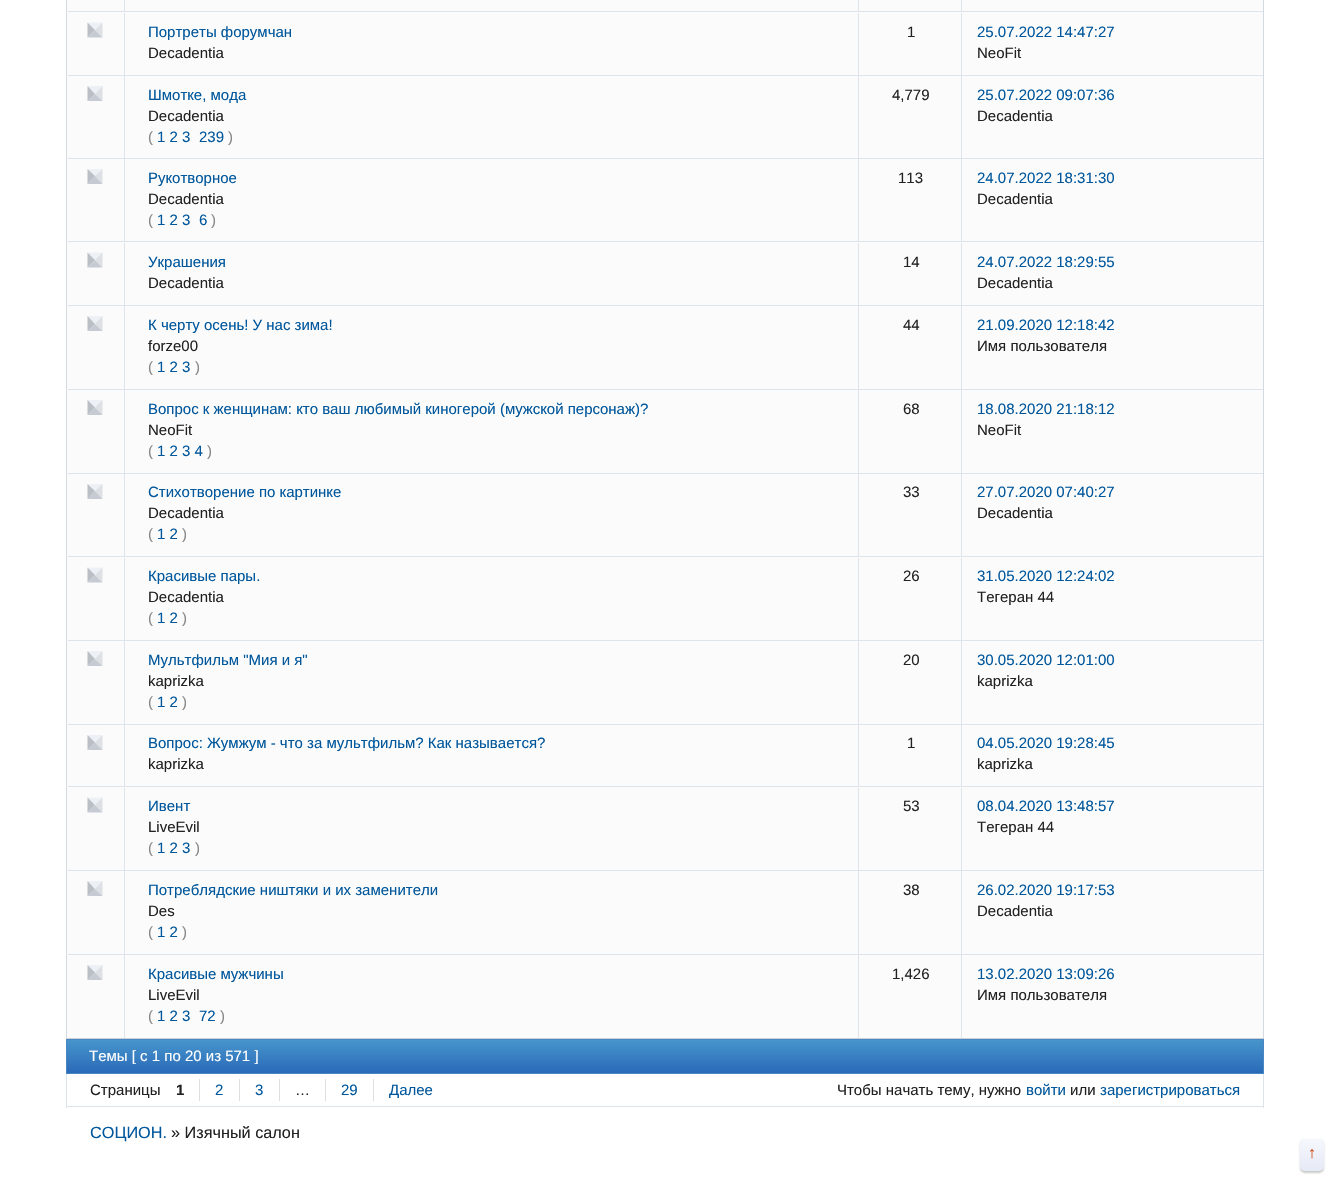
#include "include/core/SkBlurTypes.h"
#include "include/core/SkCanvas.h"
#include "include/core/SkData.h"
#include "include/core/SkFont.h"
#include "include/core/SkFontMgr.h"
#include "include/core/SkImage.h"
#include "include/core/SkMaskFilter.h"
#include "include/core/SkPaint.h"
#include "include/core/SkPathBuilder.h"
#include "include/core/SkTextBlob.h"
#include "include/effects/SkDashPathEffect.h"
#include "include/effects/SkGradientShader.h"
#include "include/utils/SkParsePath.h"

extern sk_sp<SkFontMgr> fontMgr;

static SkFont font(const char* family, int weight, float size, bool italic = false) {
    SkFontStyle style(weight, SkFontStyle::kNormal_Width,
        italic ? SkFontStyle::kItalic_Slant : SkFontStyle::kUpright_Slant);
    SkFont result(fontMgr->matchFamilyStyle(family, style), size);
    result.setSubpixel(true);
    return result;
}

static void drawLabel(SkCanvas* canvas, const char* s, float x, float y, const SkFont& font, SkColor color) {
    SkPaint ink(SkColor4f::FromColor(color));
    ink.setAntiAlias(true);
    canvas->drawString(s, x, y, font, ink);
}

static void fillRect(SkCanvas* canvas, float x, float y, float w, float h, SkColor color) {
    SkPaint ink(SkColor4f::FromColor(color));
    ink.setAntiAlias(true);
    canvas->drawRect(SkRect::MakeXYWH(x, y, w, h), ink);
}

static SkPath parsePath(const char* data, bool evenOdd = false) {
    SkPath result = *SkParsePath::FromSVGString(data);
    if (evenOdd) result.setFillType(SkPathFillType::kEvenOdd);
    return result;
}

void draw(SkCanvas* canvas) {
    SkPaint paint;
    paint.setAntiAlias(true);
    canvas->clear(0xFFFFFFFF);
    fillRect(canvas, 67, 0, 1196, 1038, 0xFFFBFBFB);
    fillRect(canvas, 1263, 0, 1, 1039, 0xFFD3DAE1);
    fillRect(canvas, 66, 1038, 1198, 1, 0xFFCBD1D8);
    fillRect(canvas, 66, 0, 1, 1039, 0xFFD3DAE1);
    fillRect(canvas, 124, 0, 1, 11, 0xFFDDE4EB);
    fillRect(canvas, 858, 0, 1, 11, 0xFFDDE4EB);
    fillRect(canvas, 961, 0, 1, 11, 0xFFDDE4EB);
    fillRect(canvas, 68, 11, 1195, 1, 0xFFDDE4EB);
    paint.setColor(0xFFEDF1F5);
    canvas->drawPath(parsePath("M87.5 22.5H102.5L95 30Z"), paint);
    paint.setColor(0xFFDDE0E4);
    canvas->drawPath(parsePath("M102.5 22.5V37.5L95 30Z"), paint);
    paint.setColor(0xFFC6CBD3);
    canvas->drawPath(parsePath("M102.5 37.5H87.5L95 30Z"), paint);
    paint.setColor(0xFFBABFC6);
    canvas->drawPath(parsePath("M87.5 37.5V22.5L95 30Z"), paint);
    fillRect(canvas, 124, 13, 1, 62, 0xFFDDE4EB);
    SkFont font1 = font("Liberation Sans", 400, 15);
    drawLabel(canvas, "Портреты форумчан", 148, 37, font1, 0xFF00579C);
    drawLabel(canvas, "Decadentia", 148, 58, font1, 0xFF222222);
    fillRect(canvas, 858, 13, 1, 62, 0xFFDDE4EB);
    drawLabel(canvas, "1", 907, 37, font1, 0xFF222222);
    fillRect(canvas, 961, 13, 1, 62, 0xFFDDE4EB);
    drawLabel(canvas, "25.07.2022 14:47:27", 977, 37, font1, 0xFF00579C);
    drawLabel(canvas, "NeoFit", 977, 58, font1, 0xFF222222);
    fillRect(canvas, 68, 75, 1195, 1, 0xFFDDE4EB);
    paint.setColor(0xFFEDF1F5);
    canvas->drawPath(parsePath("M87.5 86H102.5L95 94Z"), paint);
    paint.setColor(0xFFDDE0E4);
    canvas->drawPath(parsePath("M102.5 86V101L95 94Z"), paint);
    paint.setColor(0xFFC6CBD3);
    canvas->drawPath(parsePath("M102.5 101H87.5L95 94Z"), paint);
    paint.setColor(0xFFBABFC6);
    canvas->drawPath(parsePath("M87.5 101V86L95 94Z"), paint);
    fillRect(canvas, 124, 76, 1, 82, 0xFFDDE4EB);
    drawLabel(canvas, "Шмотке, мода", 148, 100, font1, 0xFF00579C);
    drawLabel(canvas, "Decadentia", 148, 121, font1, 0xFF222222);
    drawLabel(canvas, "(", 148, 142, font1, 0xFF888888);
    drawLabel(canvas, "1 2 3", 157, 142, font1, 0xFF00579C);
    drawLabel(canvas, "239", 199, 142, font1, 0xFF00579C);
    drawLabel(canvas, ")", 228, 142, font1, 0xFF888888);
    fillRect(canvas, 858, 76, 1, 82, 0xFFDDE4EB);
    drawLabel(canvas, "4,779", 892, 100, font1, 0xFF222222);
    fillRect(canvas, 961, 76, 1, 82, 0xFFDDE4EB);
    drawLabel(canvas, "25.07.2022 09:07:36", 977, 100, font1, 0xFF00579C);
    drawLabel(canvas, "Decadentia", 977, 121, font1, 0xFF222222);
    fillRect(canvas, 68, 158, 1195, 1, 0xFFDDE4EB);
    paint.setColor(0xFFEDF1F5);
    canvas->drawPath(parsePath("M87.5 169H102.5L95 176Z"), paint);
    paint.setColor(0xFFDDE0E4);
    canvas->drawPath(parsePath("M102.5 169V184L95 176Z"), paint);
    paint.setColor(0xFFC6CBD3);
    canvas->drawPath(parsePath("M102.5 184H87.5L95 176Z"), paint);
    paint.setColor(0xFFBABFC6);
    canvas->drawPath(parsePath("M87.5 184V169L95 176Z"), paint);
    fillRect(canvas, 124, 159, 1, 82, 0xFFDDE4EB);
    drawLabel(canvas, "Рукотворное", 148, 183, font1, 0xFF00579C);
    drawLabel(canvas, "Decadentia", 148, 204, font1, 0xFF222222);
    drawLabel(canvas, "(", 148, 225, font1, 0xFF888888);
    drawLabel(canvas, "1 2 3", 157, 225, font1, 0xFF00579C);
    drawLabel(canvas, "6", 199, 225, font1, 0xFF00579C);
    drawLabel(canvas, ")", 211, 225, font1, 0xFF888888);
    fillRect(canvas, 858, 159, 1, 82, 0xFFDDE4EB);
    drawLabel(canvas, "113", 898, 183, font1, 0xFF222222);
    fillRect(canvas, 961, 159, 1, 82, 0xFFDDE4EB);
    drawLabel(canvas, "24.07.2022 18:31:30", 977, 183, font1, 0xFF00579C);
    drawLabel(canvas, "Decadentia", 977, 204, font1, 0xFF222222);
    fillRect(canvas, 68, 241, 1195, 1, 0xFFDDE4EB);
    paint.setColor(0xFFEDF1F5);
    canvas->drawPath(parsePath("M87.5 252.5H102.5L95 260Z"), paint);
    paint.setColor(0xFFDDE0E4);
    canvas->drawPath(parsePath("M102.5 252.5V267.5L95 260Z"), paint);
    paint.setColor(0xFFC6CBD3);
    canvas->drawPath(parsePath("M102.5 267.5H87.5L95 260Z"), paint);
    paint.setColor(0xFFBABFC6);
    canvas->drawPath(parsePath("M87.5 267.5V252.5L95 260Z"), paint);
    fillRect(canvas, 124, 243, 1, 62, 0xFFDDE4EB);
    drawLabel(canvas, "Украшения", 148, 267, font1, 0xFF00579C);
    drawLabel(canvas, "Decadentia", 148, 288, font1, 0xFF222222);
    fillRect(canvas, 858, 243, 1, 62, 0xFFDDE4EB);
    drawLabel(canvas, "14", 903, 267, font1, 0xFF222222);
    fillRect(canvas, 961, 243, 1, 62, 0xFFDDE4EB);
    drawLabel(canvas, "24.07.2022 18:29:55", 977, 267, font1, 0xFF00579C);
    drawLabel(canvas, "Decadentia", 977, 288, font1, 0xFF222222);
    fillRect(canvas, 68, 305, 1195, 1, 0xFFDDE4EB);
    paint.setColor(0xFFEDF1F5);
    canvas->drawPath(parsePath("M87.5 316H102.5L95 324Z"), paint);
    paint.setColor(0xFFDDE0E4);
    canvas->drawPath(parsePath("M102.5 316V331L95 324Z"), paint);
    paint.setColor(0xFFC6CBD3);
    canvas->drawPath(parsePath("M102.5 331H87.5L95 324Z"), paint);
    paint.setColor(0xFFBABFC6);
    canvas->drawPath(parsePath("M87.5 331V316L95 324Z"), paint);
    fillRect(canvas, 124, 306, 1, 83, 0xFFDDE4EB);
    drawLabel(canvas, "К черту осень! У нас зима!", 148, 330, font1, 0xFF00579C);
    drawLabel(canvas, "forze00", 148, 351, font1, 0xFF222222);
    drawLabel(canvas, "(", 148, 372, font1, 0xFF888888);
    drawLabel(canvas, "1 2 3", 157, 372, font1, 0xFF00579C);
    drawLabel(canvas, ")", 195, 372, font1, 0xFF888888);
    fillRect(canvas, 858, 306, 1, 83, 0xFFDDE4EB);
    drawLabel(canvas, "44", 903, 330, font1, 0xFF222222);
    fillRect(canvas, 961, 306, 1, 83, 0xFFDDE4EB);
    drawLabel(canvas, "21.09.2020 12:18:42", 977, 330, font1, 0xFF00579C);
    drawLabel(canvas, "Имя пользователя", 977, 351, font1, 0xFF222222);
    fillRect(canvas, 68, 389, 1195, 1, 0xFFDDE4EB);
    paint.setColor(0xFFEDF1F5);
    canvas->drawPath(parsePath("M87.5 400H102.5L95 407.5Z"), paint);
    paint.setColor(0xFFDDE0E4);
    canvas->drawPath(parsePath("M102.5 400V415L95 407.5Z"), paint);
    paint.setColor(0xFFC6CBD3);
    canvas->drawPath(parsePath("M102.5 415H87.5L95 407.5Z"), paint);
    paint.setColor(0xFFBABFC6);
    canvas->drawPath(parsePath("M87.5 415V400L95 407.5Z"), paint);
    fillRect(canvas, 124, 390, 1, 83, 0xFFDDE4EB);
    drawLabel(canvas, "Вопрос к женщинам: кто ваш любимый киногерой (мужской персонаж)?", 148, 414, font1, 0xFF00579C);
    drawLabel(canvas, "NeoFit", 148, 435, font1, 0xFF222222);
    drawLabel(canvas, "(", 148, 456, font1, 0xFF888888);
    drawLabel(canvas, "1 2 3 4", 157, 456, font1, 0xFF00579C);
    drawLabel(canvas, ")", 207, 456, font1, 0xFF888888);
    fillRect(canvas, 858, 390, 1, 83, 0xFFDDE4EB);
    drawLabel(canvas, "68", 903, 414, font1, 0xFF222222);
    fillRect(canvas, 961, 390, 1, 83, 0xFFDDE4EB);
    drawLabel(canvas, "18.08.2020 21:18:12", 977, 414, font1, 0xFF00579C);
    drawLabel(canvas, "NeoFit", 977, 435, font1, 0xFF222222);
    fillRect(canvas, 68, 473, 1195, 1, 0xFFDDE4EB);
    paint.setColor(0xFFEDF1F5);
    canvas->drawPath(parsePath("M87.5 484H102.5L95 491Z"), paint);
    paint.setColor(0xFFDDE0E4);
    canvas->drawPath(parsePath("M102.5 484V499L95 491Z"), paint);
    paint.setColor(0xFFC6CBD3);
    canvas->drawPath(parsePath("M102.5 499H87.5L95 491Z"), paint);
    paint.setColor(0xFFBABFC6);
    canvas->drawPath(parsePath("M87.5 499V484L95 491Z"), paint);
    fillRect(canvas, 124, 474, 1, 82, 0xFFDDE4EB);
    drawLabel(canvas, "Стихотворение по картинке", 148, 497, font1, 0xFF00579C);
    drawLabel(canvas, "Decadentia", 148, 518, font1, 0xFF222222);
    drawLabel(canvas, "(", 148, 539, font1, 0xFF888888);
    drawLabel(canvas, "1 2", 157, 539, font1, 0xFF00579C);
    drawLabel(canvas, ")", 182, 539, font1, 0xFF888888);
    fillRect(canvas, 858, 474, 1, 82, 0xFFDDE4EB);
    drawLabel(canvas, "33", 903, 497, font1, 0xFF222222);
    fillRect(canvas, 961, 474, 1, 82, 0xFFDDE4EB);
    drawLabel(canvas, "27.07.2020 07:40:27", 977, 497, font1, 0xFF00579C);
    drawLabel(canvas, "Decadentia", 977, 518, font1, 0xFF222222);
    fillRect(canvas, 68, 556, 1195, 1, 0xFFDDE4EB);
    paint.setColor(0xFFEDF1F5);
    canvas->drawPath(parsePath("M87.5 567.5H102.5L95 575Z"), paint);
    paint.setColor(0xFFDDE0E4);
    canvas->drawPath(parsePath("M102.5 567.5V582.5L95 575Z"), paint);
    paint.setColor(0xFFC6CBD3);
    canvas->drawPath(parsePath("M102.5 582.5H87.5L95 575Z"), paint);
    paint.setColor(0xFFBABFC6);
    canvas->drawPath(parsePath("M87.5 582.5V567.5L95 575Z"), paint);
    fillRect(canvas, 124, 558, 1, 82, 0xFFDDE4EB);
    drawLabel(canvas, "Красивые пары.", 148, 581, font1, 0xFF00579C);
    drawLabel(canvas, "Decadentia", 148, 602, font1, 0xFF222222);
    drawLabel(canvas, "(", 148, 623, font1, 0xFF888888);
    drawLabel(canvas, "1 2", 157, 623, font1, 0xFF00579C);
    drawLabel(canvas, ")", 182, 623, font1, 0xFF888888);
    fillRect(canvas, 858, 558, 1, 82, 0xFFDDE4EB);
    drawLabel(canvas, "26", 903, 581, font1, 0xFF222222);
    fillRect(canvas, 961, 558, 1, 82, 0xFFDDE4EB);
    drawLabel(canvas, "31.05.2020 12:24:02", 977, 581, font1, 0xFF00579C);
    drawLabel(canvas, "Тегеран 44", 977, 602, font1, 0xFF222222);
    fillRect(canvas, 68, 640, 1195, 1, 0xFFDDE4EB);
    paint.setColor(0xFFEDF1F5);
    canvas->drawPath(parsePath("M87.5 651H102.5L95 659Z"), paint);
    paint.setColor(0xFFDDE0E4);
    canvas->drawPath(parsePath("M102.5 651V666L95 659Z"), paint);
    paint.setColor(0xFFC6CBD3);
    canvas->drawPath(parsePath("M102.5 666H87.5L95 659Z"), paint);
    paint.setColor(0xFFBABFC6);
    canvas->drawPath(parsePath("M87.5 666V651L95 659Z"), paint);
    fillRect(canvas, 124, 641, 1, 83, 0xFFDDE4EB);
    drawLabel(canvas, "Мультфильм \"Мия и я\"", 148, 665, font1, 0xFF00579C);
    drawLabel(canvas, "kaprizka", 148, 686, font1, 0xFF222222);
    drawLabel(canvas, "(", 148, 707, font1, 0xFF888888);
    drawLabel(canvas, "1 2", 157, 707, font1, 0xFF00579C);
    drawLabel(canvas, ")", 182, 707, font1, 0xFF888888);
    fillRect(canvas, 858, 641, 1, 83, 0xFFDDE4EB);
    drawLabel(canvas, "20", 903, 665, font1, 0xFF222222);
    fillRect(canvas, 961, 641, 1, 83, 0xFFDDE4EB);
    drawLabel(canvas, "30.05.2020 12:01:00", 977, 665, font1, 0xFF00579C);
    drawLabel(canvas, "kaprizka", 977, 686, font1, 0xFF222222);
    fillRect(canvas, 68, 724, 1195, 1, 0xFFDDE4EB);
    paint.setColor(0xFFEDF1F5);
    canvas->drawPath(parsePath("M87.5 735H102.5L95 742.5Z"), paint);
    paint.setColor(0xFFDDE0E4);
    canvas->drawPath(parsePath("M102.5 735V750L95 742.5Z"), paint);
    paint.setColor(0xFFC6CBD3);
    canvas->drawPath(parsePath("M102.5 750H87.5L95 742.5Z"), paint);
    paint.setColor(0xFFBABFC6);
    canvas->drawPath(parsePath("M87.5 750V735L95 742.5Z"), paint);
    fillRect(canvas, 124, 725, 1, 61, 0xFFDDE4EB);
    drawLabel(canvas, "Вопрос: Жумжум - что за мультфильм? Как называется?", 148, 748, font1, 0xFF00579C);
    drawLabel(canvas, "kaprizka", 148, 769, font1, 0xFF222222);
    fillRect(canvas, 858, 725, 1, 61, 0xFFDDE4EB);
    drawLabel(canvas, "1", 907, 748, font1, 0xFF222222);
    fillRect(canvas, 961, 725, 1, 61, 0xFFDDE4EB);
    drawLabel(canvas, "04.05.2020 19:28:45", 977, 748, font1, 0xFF00579C);
    drawLabel(canvas, "kaprizka", 977, 769, font1, 0xFF222222);
    fillRect(canvas, 68, 786, 1195, 1, 0xFFDDE4EB);
    paint.setColor(0xFFEDF1F5);
    canvas->drawPath(parsePath("M87.5 797.5H102.5L95 805Z"), paint);
    paint.setColor(0xFFDDE0E4);
    canvas->drawPath(parsePath("M102.5 797.5V812.5L95 805Z"), paint);
    paint.setColor(0xFFC6CBD3);
    canvas->drawPath(parsePath("M102.5 812.5H87.5L95 805Z"), paint);
    paint.setColor(0xFFBABFC6);
    canvas->drawPath(parsePath("M87.5 812.5V797.5L95 805Z"), paint);
    fillRect(canvas, 124, 788, 1, 82, 0xFFDDE4EB);
    drawLabel(canvas, "Ивент", 148, 811, font1, 0xFF00579C);
    drawLabel(canvas, "LiveEvil", 148, 832, font1, 0xFF222222);
    drawLabel(canvas, "(", 148, 853, font1, 0xFF888888);
    drawLabel(canvas, "1 2 3", 157, 853, font1, 0xFF00579C);
    drawLabel(canvas, ")", 195, 853, font1, 0xFF888888);
    fillRect(canvas, 858, 788, 1, 82, 0xFFDDE4EB);
    drawLabel(canvas, "53", 903, 811, font1, 0xFF222222);
    fillRect(canvas, 961, 788, 1, 82, 0xFFDDE4EB);
    drawLabel(canvas, "08.04.2020 13:48:57", 977, 811, font1, 0xFF00579C);
    drawLabel(canvas, "Тегеран 44", 977, 832, font1, 0xFF222222);
    fillRect(canvas, 68, 870, 1195, 1, 0xFFDDE4EB);
    paint.setColor(0xFFEDF1F5);
    canvas->drawPath(parsePath("M87.5 881H102.5L95 889Z"), paint);
    paint.setColor(0xFFDDE0E4);
    canvas->drawPath(parsePath("M102.5 881V896L95 889Z"), paint);
    paint.setColor(0xFFC6CBD3);
    canvas->drawPath(parsePath("M102.5 896H87.5L95 889Z"), paint);
    paint.setColor(0xFFBABFC6);
    canvas->drawPath(parsePath("M87.5 896V881L95 889Z"), paint);
    fillRect(canvas, 124, 871, 1, 83, 0xFFDDE4EB);
    drawLabel(canvas, "Потреблядские ништяки и их заменители", 148, 895, font1, 0xFF00579C);
    drawLabel(canvas, "Des", 148, 916, font1, 0xFF222222);
    drawLabel(canvas, "(", 148, 937, font1, 0xFF888888);
    drawLabel(canvas, "1 2", 157, 937, font1, 0xFF00579C);
    drawLabel(canvas, ")", 182, 937, font1, 0xFF888888);
    fillRect(canvas, 858, 871, 1, 83, 0xFFDDE4EB);
    drawLabel(canvas, "38", 903, 895, font1, 0xFF222222);
    fillRect(canvas, 961, 871, 1, 83, 0xFFDDE4EB);
    drawLabel(canvas, "26.02.2020 19:17:53", 977, 895, font1, 0xFF00579C);
    drawLabel(canvas, "Decadentia", 977, 916, font1, 0xFF222222);
    fillRect(canvas, 68, 954, 1195, 1, 0xFFDDE4EB);
    paint.setColor(0xFFEDF1F5);
    canvas->drawPath(parsePath("M87.5 965H102.5L95 972.5Z"), paint);
    paint.setColor(0xFFDDE0E4);
    canvas->drawPath(parsePath("M102.5 965V980L95 972.5Z"), paint);
    paint.setColor(0xFFC6CBD3);
    canvas->drawPath(parsePath("M102.5 980H87.5L95 972.5Z"), paint);
    paint.setColor(0xFFBABFC6);
    canvas->drawPath(parsePath("M87.5 980V965L95 972.5Z"), paint);
    fillRect(canvas, 124, 955, 1, 83, 0xFFDDE4EB);
    drawLabel(canvas, "Красивые мужчины", 148, 979, font1, 0xFF00579C);
    drawLabel(canvas, "LiveEvil", 148, 1000, font1, 0xFF222222);
    drawLabel(canvas, "(", 148, 1021, font1, 0xFF888888);
    drawLabel(canvas, "1 2 3", 157, 1021, font1, 0xFF00579C);
    drawLabel(canvas, "72", 199, 1021, font1, 0xFF00579C);
    drawLabel(canvas, ")", 220, 1021, font1, 0xFF888888);
    fillRect(canvas, 858, 955, 1, 83, 0xFFDDE4EB);
    drawLabel(canvas, "1,426", 892, 979, font1, 0xFF222222);
    fillRect(canvas, 961, 955, 1, 83, 0xFFDDE4EB);
    drawLabel(canvas, "13.02.2020 13:09:26", 977, 979, font1, 0xFF00579C);
    drawLabel(canvas, "Имя пользователя", 977, 1000, font1, 0xFF222222);
    {
        const SkColor colors[] = {0xFF2A6AB8, 0xFF4795CC};
        const float stops[] = {0, 1};
        const SkPoint ends[] = {{665, 1073}, {665, 1040}};
        paint.setShader(SkGradientShader::MakeLinear(ends, colors, stops, 2, SkTileMode::kClamp));
        paint.setAlpha(255);
    }
    canvas->drawRect(SkRect::MakeXYWH(67, 1040, 1196, 33), paint);
    paint.setStroke(true);
    paint.setStrokeWidth(1);
    paint.setShader(nullptr);
    paint.setColor(0xFF4A86C1);
    canvas->drawRect(SkRect::MakeXYWH(66.5f, 1039.5f, 1197, 34), paint);
    drawLabel(canvas, "Темы [ с 1 по 20 из 571 ]", 89, 1061, font1, 0xFFFFFFFF);
    fillRect(canvas, 1263, 1074, 1, 34, 0xFFDDE4EB);
    fillRect(canvas, 66, 1106, 1198, 1, 0xFFDDE4EB);
    fillRect(canvas, 66, 1074, 1, 34, 0xFFDDE4EB);
    drawLabel(canvas, "Страницы", 90, 1095, font1, 0xFF222222);
    SkFont font2 = font("Liberation Sans", 700, 15);
    drawLabel(canvas, "1", 176, 1095, font2, 0xFF222222);
    fillRect(canvas, 199, 1079, 1, 22, 0xFFDEDFDF);
    drawLabel(canvas, "2", 215, 1095, font1, 0xFF00579C);
    fillRect(canvas, 239, 1079, 1, 22, 0xFFDEDFDF);
    drawLabel(canvas, "3", 255, 1095, font1, 0xFF00579C);
    fillRect(canvas, 279, 1079, 1, 22, 0xFFDEDFDF);
    drawLabel(canvas, "…", 295, 1095, font1, 0xFF222222);
    fillRect(canvas, 325, 1079, 1, 22, 0xFFDEDFDF);
    drawLabel(canvas, "29", 341, 1095, font1, 0xFF00579C);
    fillRect(canvas, 373, 1079, 1, 22, 0xFFDEDFDF);
    drawLabel(canvas, "Далее", 389, 1095, font1, 0xFF00579C);
    drawLabel(canvas, "Чтобы начать тему, нужно", 837, 1095, font1, 0xFF222222);
    drawLabel(canvas, "войти", 1026, 1095, font1, 0xFF00579C);
    drawLabel(canvas, "или", 1070, 1095, font1, 0xFF222222);
    drawLabel(canvas, "зарегистрироваться", 1100, 1095, font1, 0xFF00579C);
    SkFont font3 = font("Liberation Sans", 400, 16.25f);
    drawLabel(canvas, "СОЦИОН.", 90, 1138, font3, 0xFF00579C);
    drawLabel(canvas, "» Изячный салон", 171, 1138, font3, 0xFF222222);
    paint.setStroke(false);
    paint.setColor(0x33000000);
    paint.setMaskFilter(SkMaskFilter::MakeBlur(kNormal_SkBlurStyle, 1));
    canvas->drawRoundRect(SkRect::MakeXYWH(1300, 1140, 24, 33), 5, 5, paint);
    paint.setMaskFilter(nullptr);
    {
        const SkColor colors[] = {0xFFF5F7FD, 0xFFE6EAF6};
        const float stops[] = {0, 1};
        const SkPoint ends[] = {{1312, 1139}, {1312, 1171}};
        paint.setShader(SkGradientShader::MakeLinear(ends, colors, stops, 2, SkTileMode::kClamp));
        paint.setAlpha(255);
    }
    canvas->drawRoundRect(SkRect::MakeXYWH(1300, 1139, 24, 32), 5, 5, paint);
    SkFont font4 = font("Liberation Serif", 700, 16);
    drawLabel(canvas, "↑", 1308, 1158, font4, 0xFFCB4B16);
}
